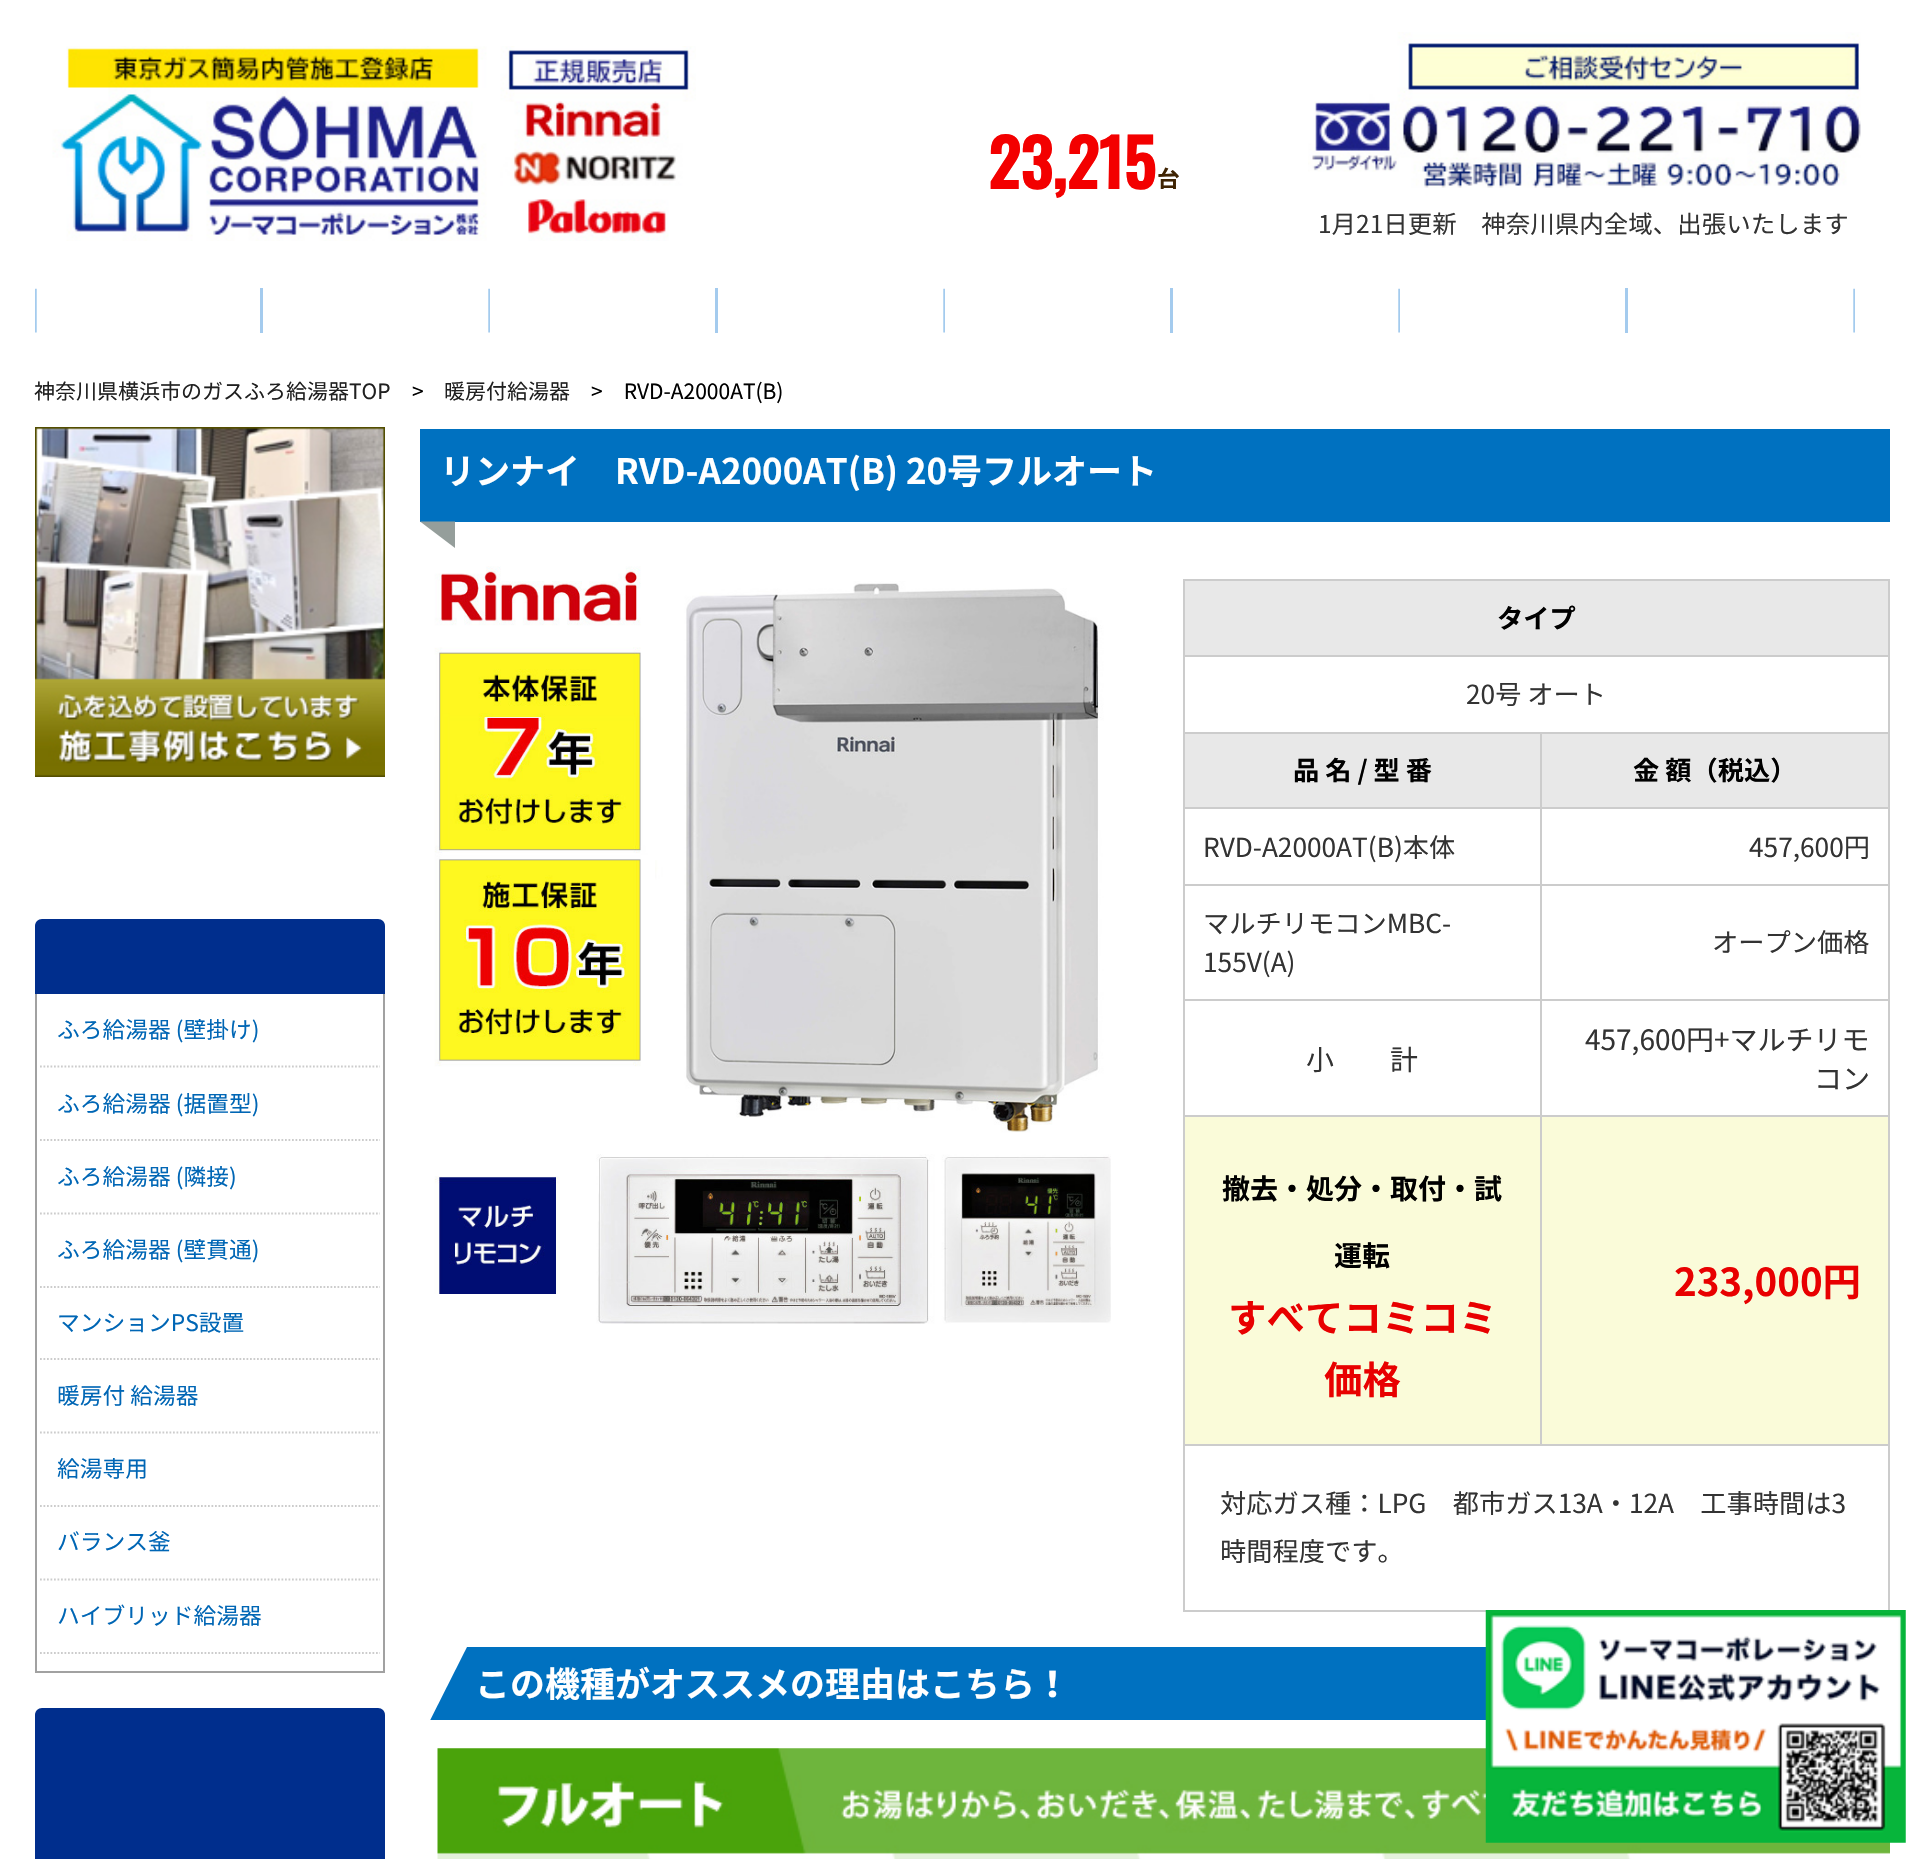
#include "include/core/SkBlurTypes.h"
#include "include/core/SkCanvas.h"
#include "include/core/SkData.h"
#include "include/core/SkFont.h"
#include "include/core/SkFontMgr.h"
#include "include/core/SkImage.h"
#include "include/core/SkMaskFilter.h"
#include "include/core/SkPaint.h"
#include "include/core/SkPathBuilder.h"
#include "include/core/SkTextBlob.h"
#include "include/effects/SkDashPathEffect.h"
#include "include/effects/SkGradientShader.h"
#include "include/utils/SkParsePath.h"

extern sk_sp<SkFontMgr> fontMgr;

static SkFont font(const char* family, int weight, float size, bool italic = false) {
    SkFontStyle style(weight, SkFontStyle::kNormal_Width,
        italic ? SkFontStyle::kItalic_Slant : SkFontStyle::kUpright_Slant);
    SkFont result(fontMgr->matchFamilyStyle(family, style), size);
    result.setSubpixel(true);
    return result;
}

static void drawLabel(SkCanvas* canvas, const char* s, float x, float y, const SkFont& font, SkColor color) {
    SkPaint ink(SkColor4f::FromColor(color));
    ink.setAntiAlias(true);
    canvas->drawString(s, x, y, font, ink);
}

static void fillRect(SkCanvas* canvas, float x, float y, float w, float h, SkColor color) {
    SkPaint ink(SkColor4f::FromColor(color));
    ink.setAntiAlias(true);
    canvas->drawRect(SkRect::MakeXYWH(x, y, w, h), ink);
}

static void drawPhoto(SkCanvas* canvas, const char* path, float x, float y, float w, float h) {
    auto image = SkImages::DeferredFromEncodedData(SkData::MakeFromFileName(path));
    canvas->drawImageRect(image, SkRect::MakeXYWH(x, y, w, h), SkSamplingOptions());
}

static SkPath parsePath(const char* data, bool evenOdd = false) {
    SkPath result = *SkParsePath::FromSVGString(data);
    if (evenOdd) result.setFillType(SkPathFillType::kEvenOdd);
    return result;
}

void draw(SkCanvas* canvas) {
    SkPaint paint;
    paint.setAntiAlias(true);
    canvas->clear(0xFFFFFFFF);
    drawPhoto(canvas, "assets/img1.png", 52, 46, 644, 195);
    SkFont font1 = font("Oswald", 700, 65);
    drawLabel(canvas, "23,215", 988, 189, font1, 0xFFF30000);
    SkFont font2 = font("Noto Sans JP", 700, 22.75f);
    drawLabel(canvas, "台", 1157, 187, font2, 0xFF402403);
    drawPhoto(canvas, "assets/img2.png", 1308, 32, 553, 156);
    SkFont font3 = font("Noto Sans JP", 400, 24.5f);
    drawLabel(canvas, "1月21日更新　神奈川県内全域、出張いたします", 1318, 233, font3, 0xFF333333);
    drawPhoto(canvas, "assets/img3.png", 35, 288, 2, 45);
    fillRect(canvas, 260, 288, 3, 45, 0xFFA4CBEE);
    drawPhoto(canvas, "assets/img4.png", 488, 288, 2, 45);
    fillRect(canvas, 715, 288, 3, 45, 0xFFA4CBEE);
    drawPhoto(canvas, "assets/img4.png", 943, 288, 2, 45);
    fillRect(canvas, 1170, 288, 3, 45, 0xFFA4CBEE);
    drawPhoto(canvas, "assets/img4.png", 1398, 288, 2, 45);
    fillRect(canvas, 1625, 288, 3, 45, 0xFFA4CBEE);
    drawPhoto(canvas, "assets/img4.png", 1853, 288, 2, 45);
    SkFont font4 = font("Noto Sans JP", 400, 21);
    drawLabel(canvas, "神奈川県横浜市のガスふろ給湯器TOP", 34, 399, font4, 0xFF202020);
    drawLabel(canvas, ">", 412, 399, font4, 0xFF000000);
    drawLabel(canvas, "暖房付給湯器", 444, 399, font4, 0xFF202020);
    drawLabel(canvas, ">　RVD-A2000AT(B)", 591, 399, font4, 0xFF000000);
    drawPhoto(canvas, "assets/img5.png", 35, 427, 350, 350);
    paint.setColor(0xFF002E8D);
    canvas->drawPath(parsePath("M42 919H378C382 919 385 922 385 926V994H35V926C35 922 38 919 42 919Z"), paint);
    fillRect(canvas, 383, 994, 2, 679, 0xFFA1A1A1);
    fillRect(canvas, 35, 1671, 350, 2, 0xFFA1A1A1);
    fillRect(canvas, 35, 994, 2, 679, 0xFFA1A1A1);
    paint.setStroke(true);
    paint.setStrokeWidth(1.8f);
    paint.setColor(0xFFCCCCCC);
    paint.setPathEffect(SkDashPathEffect::Make({{1.75f, 1.75f}}, 0));
    canvas->drawPath(parsePath("M40 1066.5H380"), paint);
    paint.setPathEffect(nullptr);
    SkFont font5 = font("Noto Sans JP", 400, 22.75f);
    drawLabel(canvas, "ふろ給湯器 (壁掛け)", 57, 1038, font5, 0xFF0066B5);
    paint.setPathEffect(SkDashPathEffect::Make({{1.75f, 1.75f}}, 0));
    canvas->drawPath(parsePath("M40 1140H380"), paint);
    paint.setPathEffect(nullptr);
    drawLabel(canvas, "ふろ給湯器 (据置型)", 57, 1112, font5, 0xFF0066B5);
    paint.setPathEffect(SkDashPathEffect::Make({{1.75f, 1.75f}}, 0));
    canvas->drawPath(parsePath("M40 1213.5H380"), paint);
    paint.setPathEffect(nullptr);
    drawLabel(canvas, "ふろ給湯器 (隣接)", 57, 1185, font5, 0xFF0066B5);
    paint.setPathEffect(SkDashPathEffect::Make({{1.75f, 1.75f}}, 0));
    canvas->drawPath(parsePath("M40 1287H380"), paint);
    paint.setPathEffect(nullptr);
    drawLabel(canvas, "ふろ給湯器 (壁貫通)", 57, 1258, font5, 0xFF0066B5);
    paint.setPathEffect(SkDashPathEffect::Make({{1.75f, 1.75f}}, 0));
    canvas->drawPath(parsePath("M40 1359H380"), paint);
    paint.setPathEffect(nullptr);
    drawLabel(canvas, "マンションPS設置", 57, 1331, font5, 0xFF0066B5);
    paint.setPathEffect(SkDashPathEffect::Make({{1.75f, 1.75f}}, 0));
    canvas->drawPath(parsePath("M40 1432.5H380"), paint);
    paint.setPathEffect(nullptr);
    drawLabel(canvas, "暖房付 給湯器", 57, 1404, font5, 0xFF0066B5);
    paint.setPathEffect(SkDashPathEffect::Make({{1.75f, 1.75f}}, 0));
    canvas->drawPath(parsePath("M40 1506H380"), paint);
    paint.setPathEffect(nullptr);
    drawLabel(canvas, "給湯専用", 57, 1477, font5, 0xFF0066B5);
    paint.setPathEffect(SkDashPathEffect::Make({{1.75f, 1.75f}}, 0));
    canvas->drawPath(parsePath("M40 1579.5H380"), paint);
    paint.setPathEffect(nullptr);
    drawLabel(canvas, "バランス釜", 57, 1550, font5, 0xFF0066B5);
    paint.setPathEffect(SkDashPathEffect::Make({{1.75f, 1.75f}}, 0));
    canvas->drawPath(parsePath("M40 1653H380"), paint);
    paint.setPathEffect(nullptr);
    drawLabel(canvas, "ハイブリッド給湯器", 57, 1624, font5, 0xFF0066B5);
    paint.setStroke(false);
    paint.setColor(0xFF002E8D);
    canvas->drawPath(parsePath("M42 1708H378C382 1708 385 1711 385 1715V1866H35V1715C35 1711 38 1708 42 1708Z"), paint);
    fillRect(canvas, 420, 429, 1470, 93, 0xFF0071C0);
    SkFont font6 = font("Noto Sans JP", 700, 35);
    drawLabel(canvas, "リンナイ　RVD-A2000AT(B) 20号フルオート", 440, 484, font6, 0xFFFFFFFF);
    paint.setColor(0xFF959E9B);
    canvas->drawPath(parsePath("M455 521.5V548L420 521.5Z"), paint);
    drawPhoto(canvas, "assets/img6.png", 434, 566, 677, 758);
    fillRect(canvas, 1183, 579, 707, 2, 0xFFCCCCCC);
    fillRect(canvas, 1183, 655, 707, 2, 0xFFCCCCCC);
    fillRect(canvas, 1183, 732, 707, 2, 0xFFCCCCCC);
    fillRect(canvas, 1183, 807, 707, 2, 0xFFCCCCCC);
    fillRect(canvas, 1183, 884, 707, 2, 0xFFCCCCCC);
    fillRect(canvas, 1183, 999, 707, 2, 0xFFCCCCCC);
    fillRect(canvas, 1183, 1115, 707, 2, 0xFFCCCCCC);
    fillRect(canvas, 1183, 1444, 707, 2, 0xFFCCCCCC);
    fillRect(canvas, 1888, 1444, 2, 168, 0xFFCCCCCC);
    fillRect(canvas, 1888, 1115, 2, 331, 0xFFCCCCCC);
    fillRect(canvas, 1888, 999, 2, 118, 0xFFCCCCCC);
    fillRect(canvas, 1888, 884, 2, 117, 0xFFCCCCCC);
    fillRect(canvas, 1888, 807, 2, 79, 0xFFCCCCCC);
    fillRect(canvas, 1888, 732, 2, 77, 0xFFCCCCCC);
    fillRect(canvas, 1888, 655, 2, 78, 0xFFCCCCCC);
    fillRect(canvas, 1888, 579, 2, 77, 0xFFCCCCCC);
    fillRect(canvas, 1183, 1610, 303, 2, 0xFFCCCCCC);
    fillRect(canvas, 1183, 1444, 2, 168, 0xFFCCCCCC);
    fillRect(canvas, 1183, 1115, 2, 331, 0xFFCCCCCC);
    fillRect(canvas, 1183, 999, 2, 118, 0xFFCCCCCC);
    fillRect(canvas, 1183, 884, 2, 117, 0xFFCCCCCC);
    fillRect(canvas, 1183, 807, 2, 79, 0xFFCCCCCC);
    fillRect(canvas, 1183, 732, 2, 77, 0xFFCCCCCC);
    fillRect(canvas, 1183, 655, 2, 78, 0xFFCCCCCC);
    fillRect(canvas, 1183, 579, 2, 77, 0xFFCCCCCC);
    fillRect(canvas, 1185, 581, 703, 74, 0xFFE8E8E8);
    SkFont font7 = font("Noto Sans JP", 700, 26.25f);
    drawLabel(canvas, "タイプ", 1497, 628, font7, 0xFF000000);
    SkFont font8 = font("Noto Sans JP", 400, 26.25f);
    drawLabel(canvas, "20号 オート", 1466, 704, font8, 0xFF333333);
    fillRect(canvas, 1185, 734, 355, 73, 0xFFE8E8E8);
    drawLabel(canvas, "品 名 / 型 番", 1293, 780, font7, 0xFF000000);
    fillRect(canvas, 1542, 734, 346, 73, 0xFFE8E8E8);
    drawLabel(canvas, "金 額（税込）", 1633, 780, font7, 0xFF000000);
    drawLabel(canvas, "RVD-A2000AT(B)本体", 1203, 857, font8, 0xFF333333);
    drawLabel(canvas, "457,600円", 1749, 857, font8, 0xFF333333);
    drawLabel(canvas, "マルチリモコンMBC-", 1203, 933, font8, 0xFF333333);
    drawLabel(canvas, "155V(A)", 1203, 972, font8, 0xFF333333);
    drawLabel(canvas, "オープン価格", 1712, 952, font8, 0xFF333333);
    SkFont font9 = font("Noto Sans JP", 400, 28);
    drawLabel(canvas, "小　　計", 1306, 1070, font9, 0xFF333333);
    drawLabel(canvas, "457,600円+マルチリモ", 1585, 1050, font9, 0xFF333333);
    drawLabel(canvas, "コン", 1814, 1089, font9, 0xFF333333);
    fillRect(canvas, 1185, 1117, 355, 327, 0xFFFAFBD9);
    SkFont font10 = font("Noto Sans JP", 700, 28);
    drawLabel(canvas, "撤去・処分・取付・試", 1222, 1199, font10, 0xFF000000);
    drawLabel(canvas, "運転", 1334, 1266, font10, 0xFF000000);
    SkFont font11 = font("Noto Sans JP", 700, 38.5f);
    drawLabel(canvas, "すべてコミコミ", 1228, 1332, font11, 0xFFE80000);
    drawLabel(canvas, "価格", 1324, 1394, font11, 0xFFE80000);
    fillRect(canvas, 1542, 1117, 346, 327, 0xFFFAFBD9);
    fillRect(canvas, 1540, 732, 2, 714, 0xFFCCCCCC);
    drawLabel(canvas, "233,000円", 1674, 1296, font11, 0xFFE80000);
    drawLabel(canvas, "対応ガス種：LPG　都市ガス13A・12A　工事時間は3", 1220, 1513, font8, 0xFF333333);
    drawLabel(canvas, "時間程度です。", 1220, 1561, font8, 0xFF333333);
    fillRect(canvas, 430, 1647, 1056, 73, 0xFF0071C0);
    paint.setColor(0xFFFFFFFF);
    canvas->drawPath(parsePath("M399 1782V1643H469Z"), paint);
    drawLabel(canvas, "この機種がオススメの理由はこちら！", 475, 1697, font6, 0xFFFFFFFF);
    drawPhoto(canvas, "assets/img7.png", 437, 1748, 1453, 111);
    drawPhoto(canvas, "assets/img8.png", 1485, 1610, 421, 233);
}
